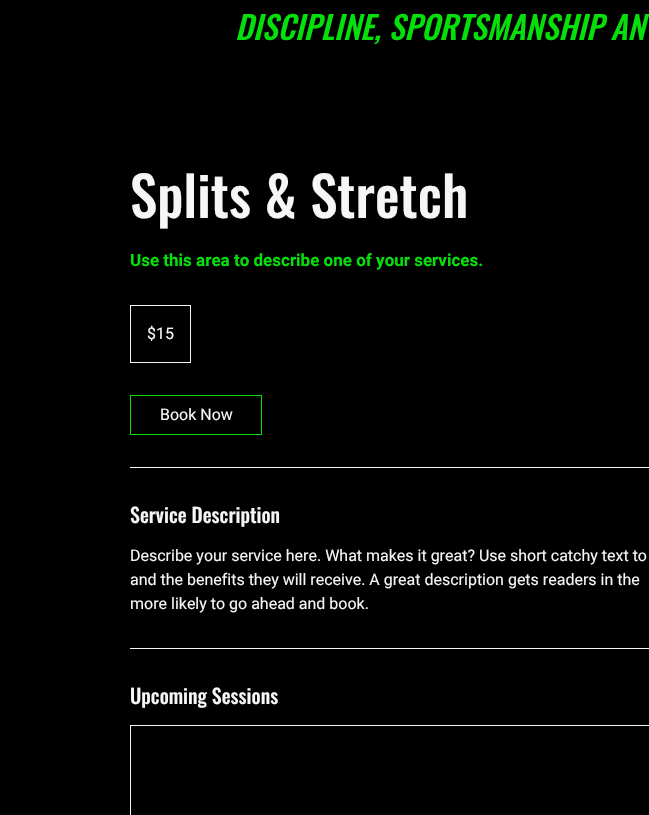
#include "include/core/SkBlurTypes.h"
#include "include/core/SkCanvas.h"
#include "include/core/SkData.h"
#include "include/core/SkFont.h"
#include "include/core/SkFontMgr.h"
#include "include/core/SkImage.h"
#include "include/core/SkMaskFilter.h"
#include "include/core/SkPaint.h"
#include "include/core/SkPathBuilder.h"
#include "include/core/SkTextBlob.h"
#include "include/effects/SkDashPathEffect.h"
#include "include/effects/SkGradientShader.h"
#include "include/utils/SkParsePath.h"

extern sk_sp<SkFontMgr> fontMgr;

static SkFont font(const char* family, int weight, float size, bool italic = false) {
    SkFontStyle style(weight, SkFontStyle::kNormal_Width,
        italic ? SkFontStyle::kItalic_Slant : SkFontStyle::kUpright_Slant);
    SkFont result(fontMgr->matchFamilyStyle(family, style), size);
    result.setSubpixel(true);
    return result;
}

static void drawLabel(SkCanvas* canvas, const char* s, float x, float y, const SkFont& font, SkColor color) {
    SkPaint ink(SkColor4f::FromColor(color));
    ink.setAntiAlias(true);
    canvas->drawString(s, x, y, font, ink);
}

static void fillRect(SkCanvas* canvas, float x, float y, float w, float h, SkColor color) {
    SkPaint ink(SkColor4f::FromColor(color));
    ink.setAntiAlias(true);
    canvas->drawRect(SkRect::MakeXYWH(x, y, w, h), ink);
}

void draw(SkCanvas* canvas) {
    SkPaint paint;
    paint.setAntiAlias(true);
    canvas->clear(0xFF000000);
    SkFont font1 = font("Oswald", 500, 32, true);
    drawLabel(canvas, "DISCIPLINE, SPORTSMANSHIP AN", 235, 40, font1, 0xFF05E00B);
    SkFont font2 = font("Oswald", 500, 55);
    drawLabel(canvas, "Splits & Stretch", 130, 218, font2, 0xFFF6F6F6);
    SkFont font3 = font("Roboto", 700, 17);
    drawLabel(canvas, "Use this area to describe one of your services.", 130, 266, font3, 0xFF05E00B);
    paint.setStroke(true);
    paint.setStrokeWidth(1);
    paint.setColor(0xFFF6F6F6);
    canvas->drawRect(SkRect::MakeXYWH(130.5f, 305.5f, 60, 57), paint);
    SkFont font4 = font("Roboto", 400, 16);
    drawLabel(canvas, "$15", 147, 339, font4, 0xFFF6F6F6);
    paint.setColor(0xFF05E00B);
    canvas->drawRect(SkRect::MakeXYWH(130.5f, 395.5f, 131, 39), paint);
    drawLabel(canvas, "Book Now", 160, 420, font4, 0xFFF6F6F6);
    fillRect(canvas, 130, 467, 519, 1, 0xFFF6F6F6);
    SkFont font5 = font("Oswald", 500, 20);
    drawLabel(canvas, "Service Description", 130, 523, font5, 0xFFF6F6F6);
    drawLabel(canvas, "Describe your service here. What makes it great? Use short catchy text to", 130, 561, font4, 0xFFF6F6F6);
    drawLabel(canvas, "and the benefits they will receive. A great description gets readers in the", 130, 585, font4, 0xFFF6F6F6);
    drawLabel(canvas, "more likely to go ahead and book.", 130, 609, font4, 0xFFF6F6F6);
    fillRect(canvas, 130, 648, 519, 1, 0xFFF6F6F6);
    drawLabel(canvas, "Upcoming Sessions", 130, 704, font5, 0xFFF6F6F6);
    paint.setColor(0xFFF6F6F6);
    canvas->drawRect(SkRect::MakeXYWH(130.5f, 725.5f, 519, 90), paint);
}
